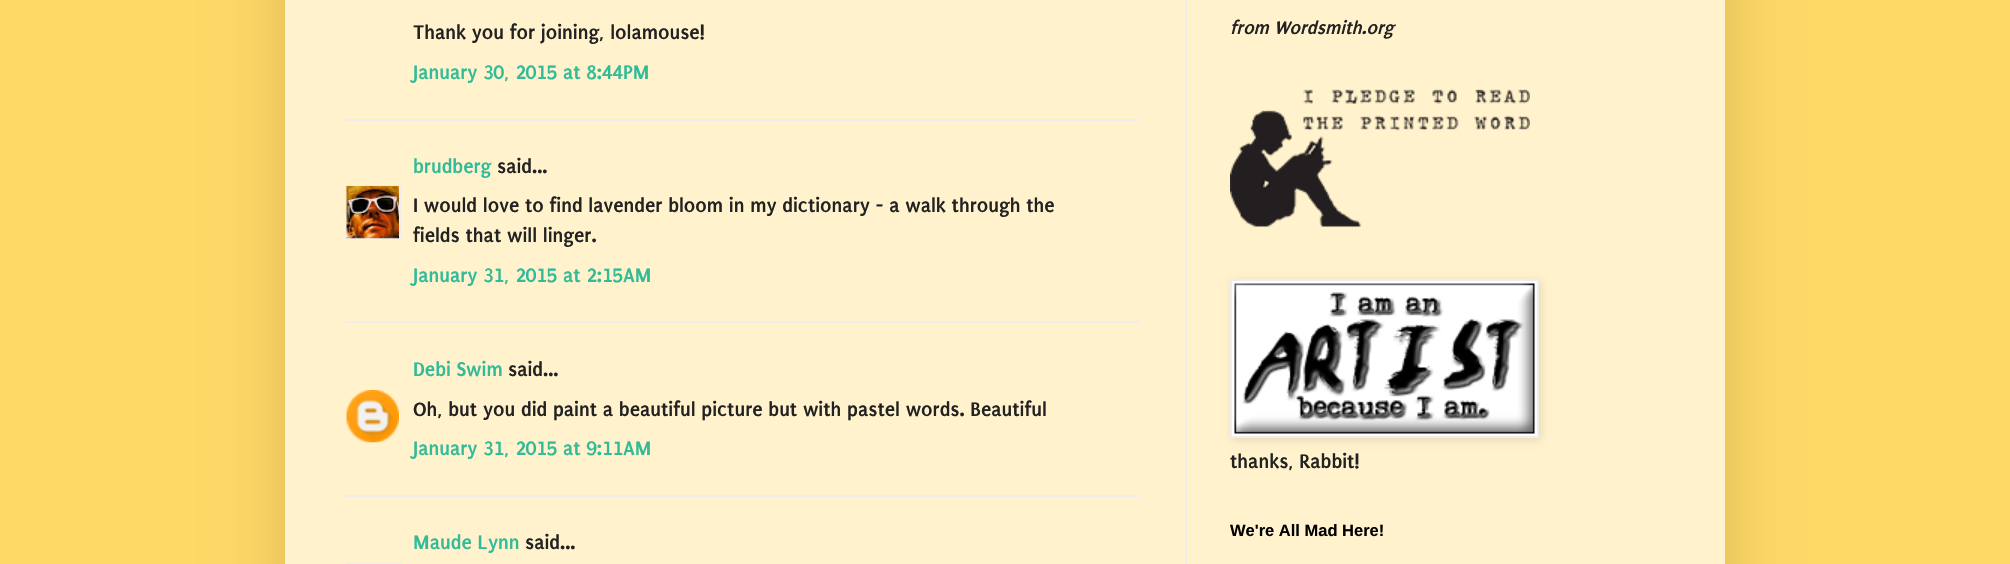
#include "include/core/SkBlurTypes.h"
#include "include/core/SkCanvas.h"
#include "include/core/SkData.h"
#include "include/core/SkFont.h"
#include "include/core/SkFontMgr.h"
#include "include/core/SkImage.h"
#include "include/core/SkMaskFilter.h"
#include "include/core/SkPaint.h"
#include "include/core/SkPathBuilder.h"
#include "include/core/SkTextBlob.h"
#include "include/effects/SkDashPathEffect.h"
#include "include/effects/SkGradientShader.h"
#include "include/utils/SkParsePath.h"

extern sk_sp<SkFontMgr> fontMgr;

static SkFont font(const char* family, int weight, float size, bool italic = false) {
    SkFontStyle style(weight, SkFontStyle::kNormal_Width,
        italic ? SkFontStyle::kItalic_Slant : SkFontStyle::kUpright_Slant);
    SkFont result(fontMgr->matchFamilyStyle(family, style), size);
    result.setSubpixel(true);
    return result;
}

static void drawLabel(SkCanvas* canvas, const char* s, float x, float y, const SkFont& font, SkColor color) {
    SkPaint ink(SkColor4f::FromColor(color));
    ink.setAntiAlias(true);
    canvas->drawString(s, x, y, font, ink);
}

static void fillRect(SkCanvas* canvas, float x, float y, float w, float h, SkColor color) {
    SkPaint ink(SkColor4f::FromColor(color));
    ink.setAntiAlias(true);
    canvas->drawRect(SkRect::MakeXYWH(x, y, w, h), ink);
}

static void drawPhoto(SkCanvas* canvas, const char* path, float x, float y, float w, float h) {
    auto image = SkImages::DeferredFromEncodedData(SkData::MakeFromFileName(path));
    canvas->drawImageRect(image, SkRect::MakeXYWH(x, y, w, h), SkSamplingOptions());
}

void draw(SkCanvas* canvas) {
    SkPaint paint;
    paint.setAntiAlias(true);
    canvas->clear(0xFFFFD966);
    paint.setColor(0x26000000);
    paint.setMaskFilter(SkMaskFilter::MakeBlur(kNormal_SkBlurStyle, 30));
    canvas->drawRect(SkRect::MakeXYWH(285, -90, 1440, 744), paint);
    paint.setMaskFilter(nullptr);
    fillRect(canvas, 285, 0, 1440, 564, 0xFFFFF2CC);
    fillRect(canvas, 1185, 0, 2, 564, 0xFFEEEEEE);
    SkFont font1 = font("Puritan", 700, 21);
    drawLabel(canvas, "Thank you for joining, lolamouse!", 413, 39, font1, 0xFF222222);
    drawLabel(canvas, "January 30, 2015 at 8:44 PM", 413, 79, font1, 0xFF31BB98);
    fillRect(canvas, 345, 119, 795, 2, 0xFFEEEEEE);
    drawLabel(canvas, "brudberg", 413, 173, font1, 0xFF31BB98);
    drawLabel(canvas, "said...", 497, 173, font1, 0xFF222222);
    canvas->save();
    canvas->clipRect(SkRect::MakeXYWH(345, 185, 56, 54));
    paint.setStroke(true);
    paint.setStrokeWidth(2);
    paint.setColor(0xFFEEEEEE);
    canvas->drawRect(SkRect::MakeXYWH(346, 186, 54, 53), paint);
    canvas->restore();
    drawPhoto(canvas, "assets/img1.png", 346, 186, 53, 53);
    drawLabel(canvas, "I would love to find lavender bloom in my dictionary - a walk through the", 413, 212, font1, 0xFF222222);
    drawLabel(canvas, "fields that will linger.", 413, 242, font1, 0xFF222222);
    drawLabel(canvas, "January 31, 2015 at 2:15 AM", 413, 282, font1, 0xFF31BB98);
    fillRect(canvas, 345, 321, 795, 2, 0xFFEEEEEE);
    drawLabel(canvas, "Debi Swim", 413, 376, font1, 0xFF31BB98);
    drawLabel(canvas, "said...", 508, 376, font1, 0xFF222222);
    drawPhoto(canvas, "assets/img2.png", 346, 390, 53, 53);
    drawLabel(canvas, "Oh, but you did paint a beautiful picture but with pastel words. Beautiful", 413, 416, font1, 0xFF222222);
    drawLabel(canvas, "January 31, 2015 at 9:11 AM", 413, 455, font1, 0xFF31BB98);
    fillRect(canvas, 345, 495, 795, 2, 0xFFEEEEEE);
    drawLabel(canvas, "Maude Lynn", 413, 549, font1, 0xFF31BB98);
    drawLabel(canvas, "said...", 525, 549, font1, 0xFF222222);
    canvas->drawRect(SkRect::MakeXYWH(346, 564, 54, 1), paint);
    SkFont font2 = font("Puritan", 700, 19.5f, true);
    drawLabel(canvas, "from Wordsmith.org", 1230, 34, font2, 0xFF222222);
    drawPhoto(canvas, "assets/img3.png", 1230, 89, 300, 138);
    paint.setStroke(false);
    paint.setColor(0x1A000000);
    paint.setMaskFilter(SkMaskFilter::MakeBlur(kNormal_SkBlurStyle, 4));
    canvas->drawRect(SkRect::MakeXYWH(1232, 281, 309, 159), paint);
    paint.setMaskFilter(nullptr);
    paint.setColor(0xFFFFFFFF);
    canvas->drawRect(SkRect::MakeXYWH(1231, 280, 307, 157), paint);
    paint.setStroke(true);
    paint.setColor(0xFFEEEEEE);
    canvas->drawRect(SkRect::MakeXYWH(1231, 280, 307, 157), paint);
    drawPhoto(canvas, "assets/img4.png", 1234, 283, 301, 151);
    drawLabel(canvas, "thanks, Rabbit!", 1230, 468, font1, 0xFF222222);
    SkFont font3 = font("Liberation Sans", 700, 16.5f);
    drawLabel(canvas, "We're All Mad Here!", 1230, 536, font3, 0xFF000000);
}
